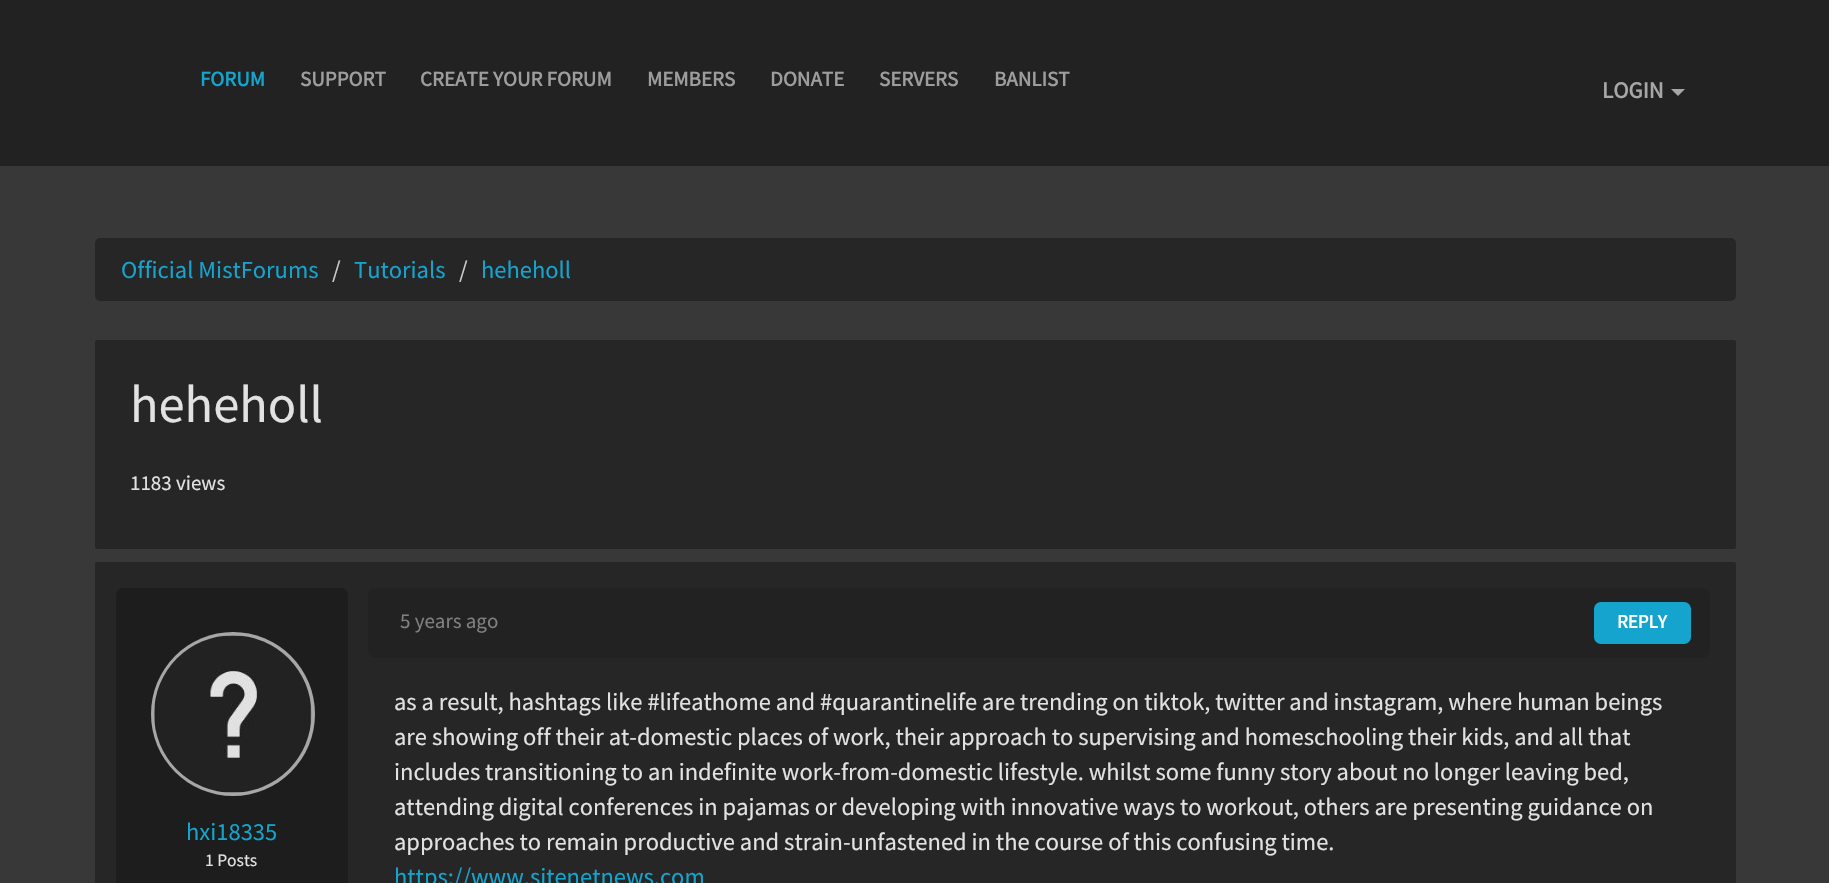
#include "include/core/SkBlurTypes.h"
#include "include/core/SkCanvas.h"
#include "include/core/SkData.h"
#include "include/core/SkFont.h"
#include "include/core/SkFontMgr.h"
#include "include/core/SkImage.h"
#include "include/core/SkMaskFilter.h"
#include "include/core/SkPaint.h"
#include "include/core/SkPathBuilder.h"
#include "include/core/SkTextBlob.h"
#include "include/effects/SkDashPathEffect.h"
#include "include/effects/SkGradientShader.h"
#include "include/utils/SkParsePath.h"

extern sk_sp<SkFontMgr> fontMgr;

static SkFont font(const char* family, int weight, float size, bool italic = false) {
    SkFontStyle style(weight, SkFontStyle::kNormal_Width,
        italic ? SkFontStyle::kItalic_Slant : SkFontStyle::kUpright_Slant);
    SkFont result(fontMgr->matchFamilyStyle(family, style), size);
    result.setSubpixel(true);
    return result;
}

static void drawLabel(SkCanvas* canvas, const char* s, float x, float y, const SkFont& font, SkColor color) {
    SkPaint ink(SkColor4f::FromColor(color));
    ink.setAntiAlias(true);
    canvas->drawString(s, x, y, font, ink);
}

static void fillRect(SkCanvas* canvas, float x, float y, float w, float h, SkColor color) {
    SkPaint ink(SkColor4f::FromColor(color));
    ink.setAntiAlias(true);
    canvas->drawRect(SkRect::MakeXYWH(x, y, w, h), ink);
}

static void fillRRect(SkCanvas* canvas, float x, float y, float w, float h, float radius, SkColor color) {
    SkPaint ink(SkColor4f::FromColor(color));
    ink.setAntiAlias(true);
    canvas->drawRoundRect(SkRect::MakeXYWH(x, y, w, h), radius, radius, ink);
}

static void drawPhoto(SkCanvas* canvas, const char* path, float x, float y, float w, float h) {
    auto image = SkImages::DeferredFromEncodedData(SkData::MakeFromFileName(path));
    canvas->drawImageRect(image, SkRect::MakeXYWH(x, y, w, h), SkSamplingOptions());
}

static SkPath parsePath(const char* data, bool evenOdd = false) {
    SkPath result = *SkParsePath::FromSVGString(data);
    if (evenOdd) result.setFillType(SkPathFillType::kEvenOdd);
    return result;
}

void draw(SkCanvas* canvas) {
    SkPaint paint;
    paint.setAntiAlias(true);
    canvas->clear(0xFF383838);
    fillRect(canvas, 0, 0, 1829, 166, 0xFF222222);
    SkFont font1 = font("Source Sans Pro", 700, 21);
    drawLabel(canvas, "FORUM", 200, 86, font1, 0xFF14A4CD);
    drawLabel(canvas, "SUPPORT", 300, 86, font1, 0xFF9D9D9D);
    drawLabel(canvas, "CREATE YOUR FORUM", 420, 86, font1, 0xFF9D9D9D);
    drawLabel(canvas, "MEMBERS", 647, 86, font1, 0xFF9D9D9D);
    drawLabel(canvas, "DONATE", 770, 86, font1, 0xFF9D9D9D);
    drawLabel(canvas, "SERVERS", 879, 86, font1, 0xFF9D9D9D);
    drawLabel(canvas, "BANLIST", 994, 86, font1, 0xFF9D9D9D);
    SkFont font2 = font("Source Sans Pro", 700, 23);
    drawLabel(canvas, "LOGIN", 1602, 98, font2, 0xFFA7A7A7);
    paint.setColor(0xFFA7A7A7);
    canvas->drawPath(parsePath("M1671 89H1685L1678 96Z"), paint);
    paint.setColor(0xFF262626);
    canvas->drawRoundRect(SkRect::MakeXYWH(94, 237, 1643, 65), 6, 6, paint);
    paint.setStroke(true);
    paint.setStrokeWidth(2);
    paint.setColor(0xFF383838);
    canvas->drawRoundRect(SkRect::MakeXYWH(94, 237, 1643, 65), 6, 6, paint);
    SkFont font3 = font("Source Sans Pro", 400, 24.5f);
    drawLabel(canvas, "Official MistForums", 121, 278, font3, 0xFF14A4CD);
    drawLabel(canvas, "/", 332, 278, font3, 0xFFCCCCCC);
    drawLabel(canvas, "Tutorials", 354, 278, font3, 0xFF14A4CD);
    drawLabel(canvas, "/", 459, 278, font3, 0xFFCCCCCC);
    drawLabel(canvas, "heheholl", 481, 278, font3, 0xFF14A4CD);
    paint.setStroke(false);
    paint.setColor(0xFF262626);
    canvas->drawRoundRect(SkRect::MakeXYWH(94, 339, 1643, 211), 3, 3, paint);
    paint.setStroke(true);
    paint.setColor(0xFF383838);
    canvas->drawRoundRect(SkRect::MakeXYWH(94, 339, 1643, 211), 3, 3, paint);
    SkFont font4 = font("Source Sans Pro", 400, 52.5f);
    drawLabel(canvas, "heheholl", 130, 422, font4, 0xFFE2E2E2);
    SkFont font5 = font("Source Sans Pro", 400, 21);
    drawLabel(canvas, "1183 views", 130, 490, font5, 0xFFE2E2E2);
    paint.setStroke(false);
    paint.setColor(0xFF262626);
    canvas->drawRoundRect(SkRect::MakeXYWH(94, 561, 1643, 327), 3, 3, paint);
    paint.setStroke(true);
    paint.setColor(0xFF383838);
    canvas->drawRoundRect(SkRect::MakeXYWH(94, 561, 1643, 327), 3, 3, paint);
    fillRRect(canvas, 116, 588, 232, 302, 7, 0xFF1D1D1D);
    paint.setStroke(false);
    paint.setColor(0xFFA7A7A7);
    canvas->drawCircle(233, 714, 82, paint);
    drawPhoto(canvas, "assets/img1.png", 154, 635, 158, 158);
    drawLabel(canvas, "hxi18335", 186, 840, font3, 0xFF14A4CD);
    SkFont font6 = font("Source Sans Pro", 400, 17.5f);
    drawLabel(canvas, "1 Posts", 205, 866, font6, 0xFFE2E2E2);
    fillRRect(canvas, 368, 588, 1342, 70, 7, 0xFF222222);
    drawLabel(canvas, "5 years ago", 400, 628, font5, 0xFF808080);
    paint.setColor(0xFF14A4CD);
    canvas->drawRoundRect(SkRect::MakeXYWH(1595, 603, 95, 40), 6, 6, paint);
    paint.setStroke(true);
    canvas->drawRoundRect(SkRect::MakeXYWH(1595, 603, 95, 40), 6, 6, paint);
    SkFont font7 = font("Source Sans Pro", 700, 19);
    drawLabel(canvas, "REPLY", 1617, 628, font7, 0xFFFFFFFF);
    drawLabel(canvas, "as a result, hashtags like #lifeathome and #quarantinelife are trending on tiktok, twitter and instagram, where human beings", 394, 710, font3, 0xFFE2E2E2);
    drawLabel(canvas, "are showing off their at-domestic places of work, their approach to supervising and homeschooling their kids, and all that", 394, 745, font3, 0xFFE2E2E2);
    drawLabel(canvas, "includes transitioning to an indefinite work-from-domestic lifestyle. whilst some funny story about no longer leaving bed,", 394, 780, font3, 0xFFE2E2E2);
    drawLabel(canvas, "attending digital conferences in pajamas or developing with innovative ways to workout, others are presenting guidance on", 394, 815, font3, 0xFFE2E2E2);
    drawLabel(canvas, "approaches to remain productive and strain-unfastened in the course of this confusing time.", 394, 850, font3, 0xFFE2E2E2);
    drawLabel(canvas, "https://www.sitenetnews.com", 394, 885, font3, 0xFF14A4CD);
}
